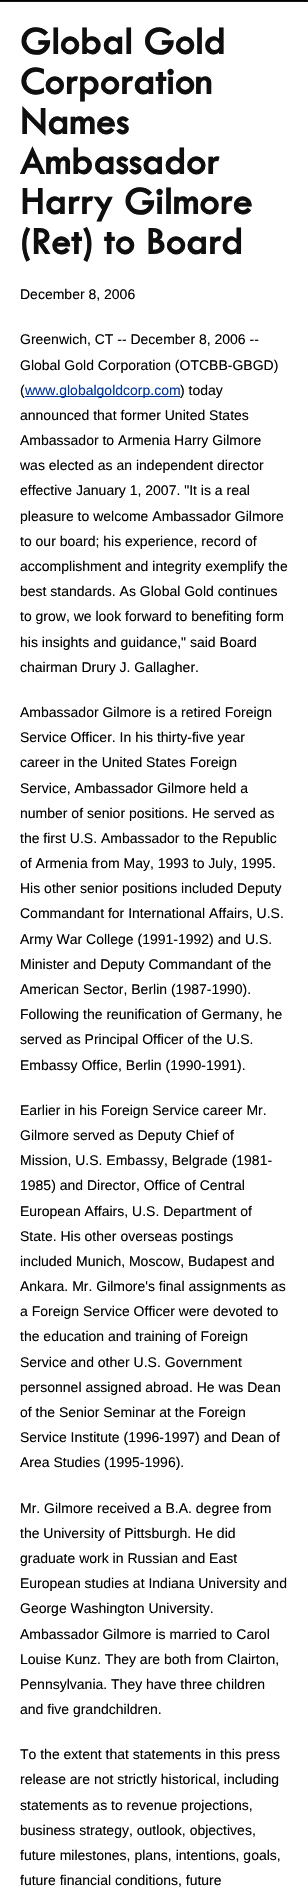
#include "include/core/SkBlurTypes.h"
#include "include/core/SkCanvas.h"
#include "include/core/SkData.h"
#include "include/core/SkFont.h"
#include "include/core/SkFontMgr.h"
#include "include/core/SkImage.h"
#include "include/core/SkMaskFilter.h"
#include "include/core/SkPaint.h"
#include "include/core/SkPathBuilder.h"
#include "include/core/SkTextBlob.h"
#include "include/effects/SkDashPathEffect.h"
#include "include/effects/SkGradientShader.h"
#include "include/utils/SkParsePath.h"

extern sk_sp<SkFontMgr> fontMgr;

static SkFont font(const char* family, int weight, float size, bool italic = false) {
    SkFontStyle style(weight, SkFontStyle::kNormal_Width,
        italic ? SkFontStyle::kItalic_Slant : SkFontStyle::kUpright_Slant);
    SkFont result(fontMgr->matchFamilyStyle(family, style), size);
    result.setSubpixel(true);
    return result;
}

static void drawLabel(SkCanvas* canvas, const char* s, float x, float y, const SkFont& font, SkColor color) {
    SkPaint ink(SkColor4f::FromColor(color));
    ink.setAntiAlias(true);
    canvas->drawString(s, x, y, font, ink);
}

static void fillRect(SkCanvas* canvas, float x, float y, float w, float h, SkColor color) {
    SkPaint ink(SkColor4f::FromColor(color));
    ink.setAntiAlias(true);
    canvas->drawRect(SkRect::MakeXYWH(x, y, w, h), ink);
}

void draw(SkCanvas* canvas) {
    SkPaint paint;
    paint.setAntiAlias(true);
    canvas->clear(0xFF000000);
    fillRect(canvas, 307, 0, 1, 2, 0xFF141414);
    fillRect(canvas, 0, 1, 308, 1, 0xFF141414);
    fillRect(canvas, 0, 2, 308, 1890, 0xFFFFFFFF);
    SkFont font1 = font("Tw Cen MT", 700, 40);
    drawLabel(canvas, "Global Gold", 20, 54, font1, 0xFF0F0F0F);
    drawLabel(canvas, "Corporation", 20, 94, font1, 0xFF0F0F0F);
    drawLabel(canvas, "Names", 20, 134, font1, 0xFF0F0F0F);
    drawLabel(canvas, "Ambassador", 20, 174, font1, 0xFF0F0F0F);
    drawLabel(canvas, "Harry Gilmore", 20, 214, font1, 0xFF0F0F0F);
    drawLabel(canvas, "(Ret) to Board", 20, 254, font1, 0xFF0F0F0F);
    SkFont font2 = font("Liberation Sans", 400, 14);
    drawLabel(canvas, "December 8, 2006", 20, 299, font2, 0xFF000000);
    drawLabel(canvas, "Greenwich, CT -- December 8, 2006 --", 20, 344, font2, 0xFF000000);
    drawLabel(canvas, "Global Gold Corporation (OTCBB-GBGD)", 20, 370, font2, 0xFF000000);
    drawLabel(canvas, "(", 20, 395, font2, 0xFF000000);
    fillRect(canvas, 25, 396, 155, 1, 0xFF003399);
    drawLabel(canvas, "www.globalgoldcorp.com", 25, 395, font2, 0xFF003399);
    drawLabel(canvas, ") today", 180, 395, font2, 0xFF000000);
    drawLabel(canvas, "announced that former United States", 20, 420, font2, 0xFF000000);
    drawLabel(canvas, "Ambassador to Armenia Harry Gilmore", 20, 445, font2, 0xFF000000);
    drawLabel(canvas, "was elected as an independent director", 20, 470, font2, 0xFF000000);
    drawLabel(canvas, "effective January 1, 2007. \"It is a real", 20, 495, font2, 0xFF000000);
    drawLabel(canvas, "pleasure to welcome Ambassador Gilmore", 20, 521, font2, 0xFF000000);
    drawLabel(canvas, "to our board; his experience, record of", 20, 546, font2, 0xFF000000);
    drawLabel(canvas, "accomplishment and integrity exemplify the", 20, 571, font2, 0xFF000000);
    drawLabel(canvas, "best standards. As Global Gold continues", 20, 596, font2, 0xFF000000);
    drawLabel(canvas, "to grow, we look forward to benefiting form", 20, 621, font2, 0xFF000000);
    drawLabel(canvas, "his insights and guidance,\" said Board", 20, 647, font2, 0xFF000000);
    drawLabel(canvas, "chairman Drury J. Gallagher.", 20, 672, font2, 0xFF000000);
    drawLabel(canvas, "Ambassador Gilmore is a retired Foreign", 20, 717, font2, 0xFF000000);
    drawLabel(canvas, "Service Officer. In his thirty-five year", 20, 742, font2, 0xFF000000);
    drawLabel(canvas, "career in the United States Foreign", 20, 767, font2, 0xFF000000);
    drawLabel(canvas, "Service, Ambassador Gilmore held a", 20, 793, font2, 0xFF000000);
    drawLabel(canvas, "number of senior positions. He served as", 20, 818, font2, 0xFF000000);
    drawLabel(canvas, "the first U.S. Ambassador to the Republic", 20, 843, font2, 0xFF000000);
    drawLabel(canvas, "of Armenia from May, 1993 to July, 1995.", 20, 868, font2, 0xFF000000);
    drawLabel(canvas, "His other senior positions included Deputy", 20, 893, font2, 0xFF000000);
    drawLabel(canvas, "Commandant for International Affairs, U.S.", 20, 918, font2, 0xFF000000);
    drawLabel(canvas, "Army War College (1991-1992) and U.S.", 20, 944, font2, 0xFF000000);
    drawLabel(canvas, "Minister and Deputy Commandant of the", 20, 969, font2, 0xFF000000);
    drawLabel(canvas, "American Sector, Berlin (1987-1990).", 20, 994, font2, 0xFF000000);
    drawLabel(canvas, "Following the reunification of Germany, he", 20, 1019, font2, 0xFF000000);
    drawLabel(canvas, "served as Principal Officer of the U.S.", 20, 1044, font2, 0xFF000000);
    drawLabel(canvas, "Embassy Office, Berlin (1990-1991).", 20, 1070, font2, 0xFF000000);
    drawLabel(canvas, "Earlier in his Foreign Service career Mr.", 20, 1115, font2, 0xFF000000);
    drawLabel(canvas, "Gilmore served as Deputy Chief of", 20, 1140, font2, 0xFF000000);
    drawLabel(canvas, "Mission, U.S. Embassy, Belgrade (1981-", 20, 1165, font2, 0xFF000000);
    drawLabel(canvas, "1985) and Director, Office of Central", 20, 1190, font2, 0xFF000000);
    drawLabel(canvas, "European Affairs, U.S. Department of", 20, 1216, font2, 0xFF000000);
    drawLabel(canvas, "State. His other overseas postings", 20, 1241, font2, 0xFF000000);
    drawLabel(canvas, "included Munich, Moscow, Budapest and", 20, 1266, font2, 0xFF000000);
    drawLabel(canvas, "Ankara. Mr. Gilmore's final assignments as", 20, 1291, font2, 0xFF000000);
    drawLabel(canvas, "a Foreign Service Officer were devoted to", 20, 1316, font2, 0xFF000000);
    drawLabel(canvas, "the education and training of Foreign", 20, 1341, font2, 0xFF000000);
    drawLabel(canvas, "Service and other U.S. Government", 20, 1367, font2, 0xFF000000);
    drawLabel(canvas, "personnel assigned abroad. He was Dean", 20, 1392, font2, 0xFF000000);
    drawLabel(canvas, "of the Senior Seminar at the Foreign", 20, 1417, font2, 0xFF000000);
    drawLabel(canvas, "Service Institute (1996-1997) and Dean of", 20, 1442, font2, 0xFF000000);
    drawLabel(canvas, "Area Studies (1995-1996).", 20, 1467, font2, 0xFF000000);
    drawLabel(canvas, "Mr. Gilmore received a B.A. degree from", 20, 1513, font2, 0xFF000000);
    drawLabel(canvas, "the University of Pittsburgh. He did", 20, 1538, font2, 0xFF000000);
    drawLabel(canvas, "graduate work in Russian and East", 20, 1563, font2, 0xFF000000);
    drawLabel(canvas, "European studies at Indiana University and", 20, 1588, font2, 0xFF000000);
    drawLabel(canvas, "George Washington University.", 20, 1613, font2, 0xFF000000);
    drawLabel(canvas, "Ambassador Gilmore is married to Carol", 20, 1639, font2, 0xFF000000);
    drawLabel(canvas, "Louise Kunz. They are both from Clairton,", 20, 1664, font2, 0xFF000000);
    drawLabel(canvas, "Pennsylvania. They have three children", 20, 1689, font2, 0xFF000000);
    drawLabel(canvas, "and five grandchildren.", 20, 1714, font2, 0xFF000000);
    drawLabel(canvas, "To the extent that statements in this press", 20, 1759, font2, 0xFF000000);
    drawLabel(canvas, "release are not strictly historical, including", 20, 1784, font2, 0xFF000000);
    drawLabel(canvas, "statements as to revenue projections,", 20, 1810, font2, 0xFF000000);
    drawLabel(canvas, "business strategy, outlook, objectives,", 20, 1835, font2, 0xFF000000);
    drawLabel(canvas, "future milestones, plans, intentions, goals,", 20, 1860, font2, 0xFF000000);
    drawLabel(canvas, "future financial conditions, future", 20, 1885, font2, 0xFF000000);
}
